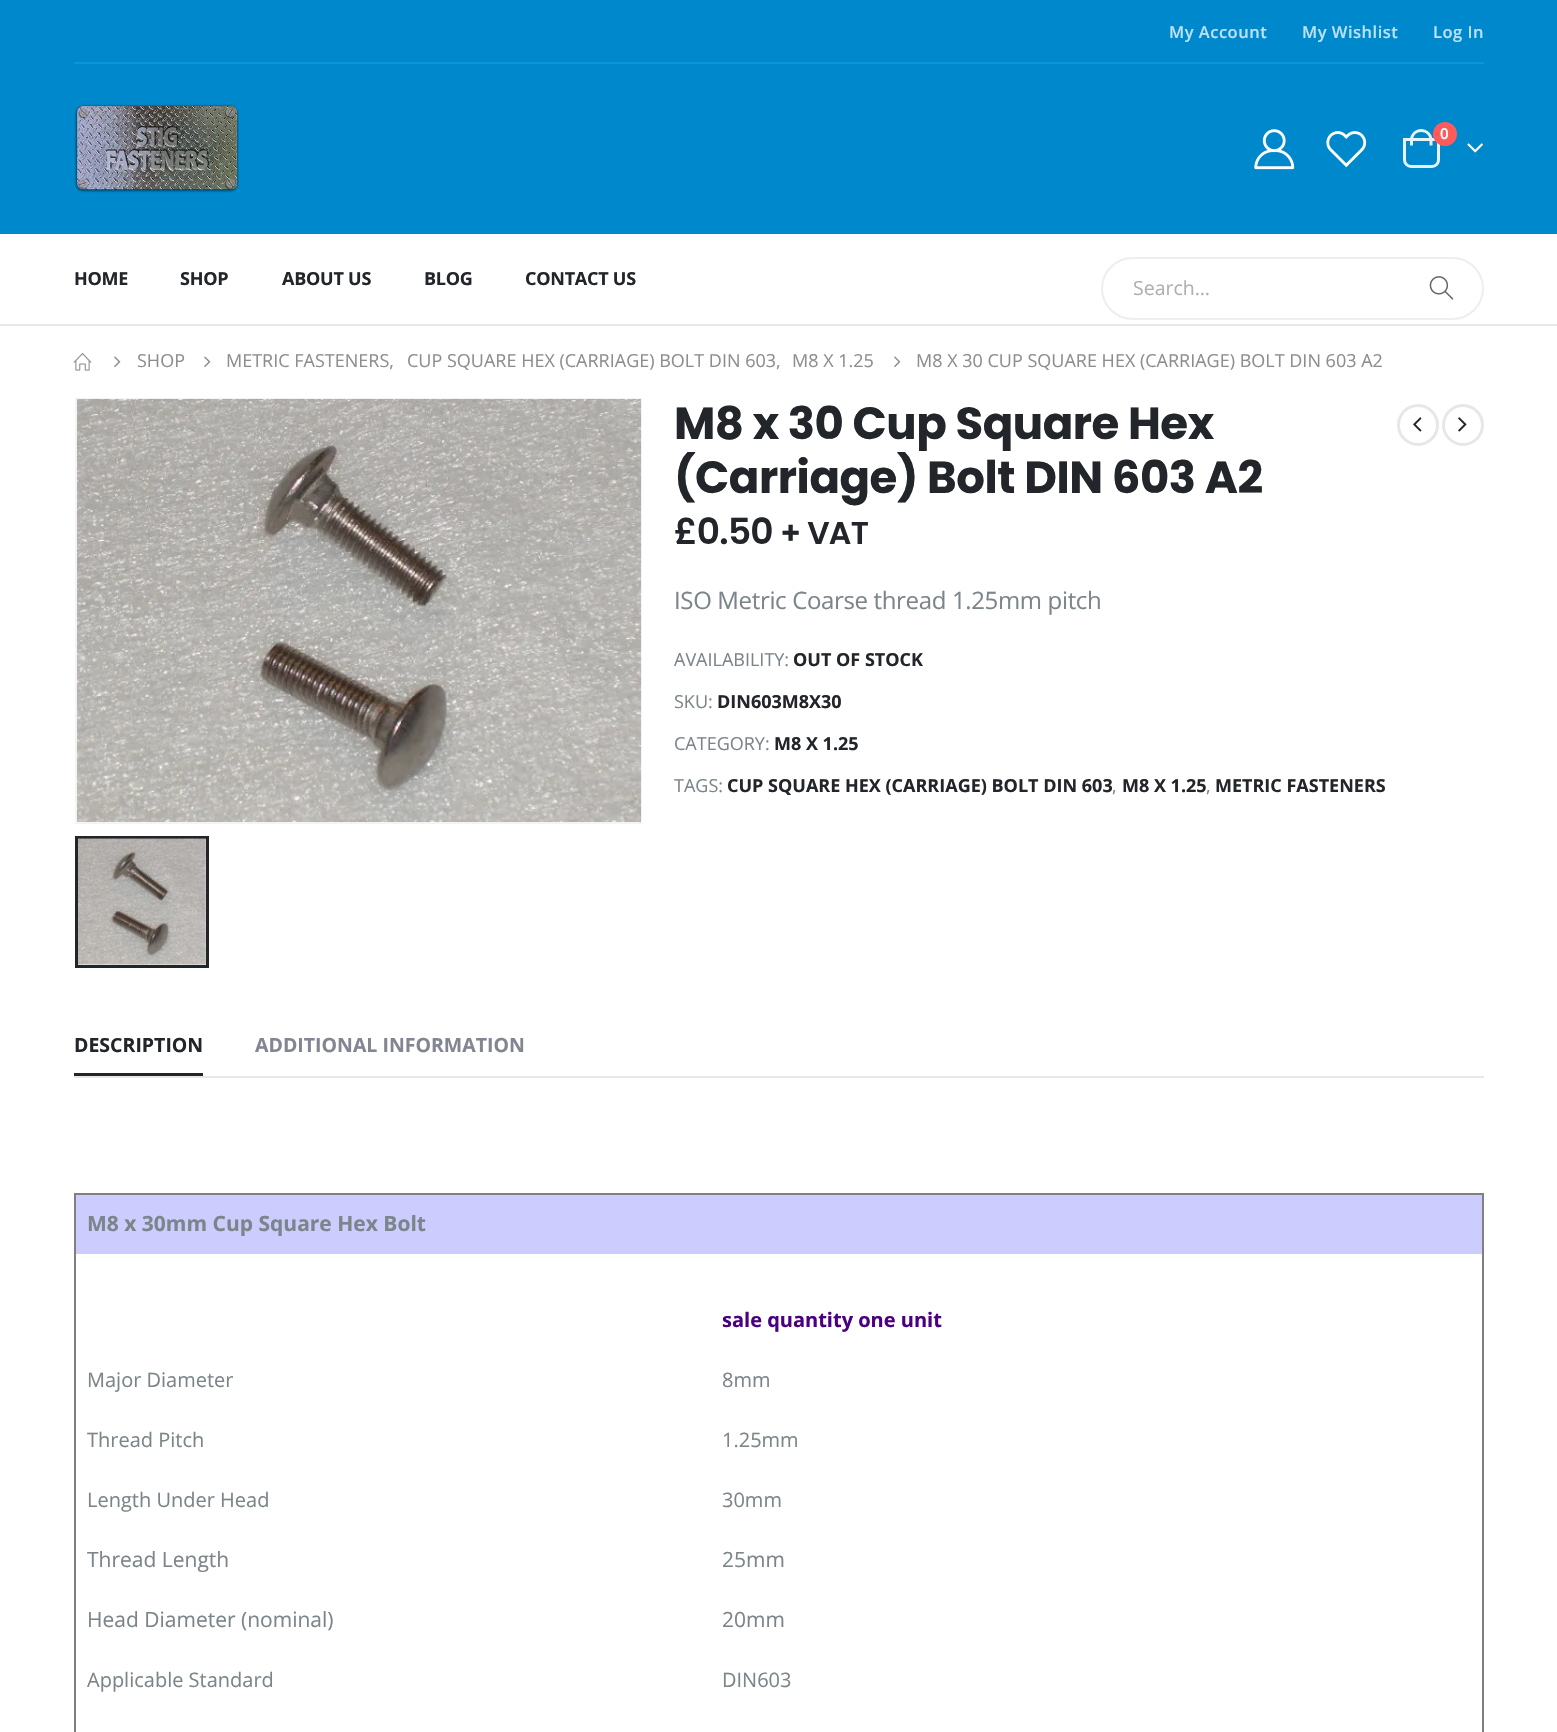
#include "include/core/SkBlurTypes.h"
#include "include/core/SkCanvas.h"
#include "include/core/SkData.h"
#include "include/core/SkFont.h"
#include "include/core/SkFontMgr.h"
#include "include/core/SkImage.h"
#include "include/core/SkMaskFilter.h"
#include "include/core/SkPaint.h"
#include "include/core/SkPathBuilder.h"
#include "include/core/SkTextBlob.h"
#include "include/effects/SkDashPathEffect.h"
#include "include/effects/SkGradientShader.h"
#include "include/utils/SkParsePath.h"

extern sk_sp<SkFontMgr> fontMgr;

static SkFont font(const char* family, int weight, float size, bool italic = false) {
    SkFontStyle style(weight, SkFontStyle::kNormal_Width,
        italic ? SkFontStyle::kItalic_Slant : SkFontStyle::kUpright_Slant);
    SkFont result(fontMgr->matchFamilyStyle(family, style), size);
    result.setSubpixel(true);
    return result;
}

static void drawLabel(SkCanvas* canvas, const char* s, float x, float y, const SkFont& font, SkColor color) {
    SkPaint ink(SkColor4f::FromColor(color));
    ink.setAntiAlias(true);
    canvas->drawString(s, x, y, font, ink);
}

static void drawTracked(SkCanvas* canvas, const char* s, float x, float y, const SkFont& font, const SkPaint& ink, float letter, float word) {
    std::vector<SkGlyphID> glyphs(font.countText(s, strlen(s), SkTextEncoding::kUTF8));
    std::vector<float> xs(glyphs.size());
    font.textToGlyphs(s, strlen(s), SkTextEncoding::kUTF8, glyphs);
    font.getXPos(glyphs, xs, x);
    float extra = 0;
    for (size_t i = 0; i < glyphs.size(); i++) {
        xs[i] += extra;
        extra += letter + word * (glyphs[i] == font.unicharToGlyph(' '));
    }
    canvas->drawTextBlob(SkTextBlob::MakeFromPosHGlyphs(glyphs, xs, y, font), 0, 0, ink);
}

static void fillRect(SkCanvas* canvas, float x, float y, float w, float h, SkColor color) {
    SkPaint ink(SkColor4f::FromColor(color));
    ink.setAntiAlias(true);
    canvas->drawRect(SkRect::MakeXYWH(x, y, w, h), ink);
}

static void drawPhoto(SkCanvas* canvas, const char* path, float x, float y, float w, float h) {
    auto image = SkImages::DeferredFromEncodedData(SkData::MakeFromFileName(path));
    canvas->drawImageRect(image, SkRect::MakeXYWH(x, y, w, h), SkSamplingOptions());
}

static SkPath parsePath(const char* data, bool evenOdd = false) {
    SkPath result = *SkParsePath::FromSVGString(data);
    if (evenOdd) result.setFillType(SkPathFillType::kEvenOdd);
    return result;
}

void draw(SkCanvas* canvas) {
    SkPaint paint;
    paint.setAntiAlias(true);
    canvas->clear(0xFFFFFFFF);
    fillRect(canvas, 0, 324, 1557, 2, 0xFFE7E7E7);
    fillRect(canvas, 0, 0, 1557, 234, 0xFF0088CC);
    SkFont font1 = font("Open Sans", 600, 16.5f);
    paint.setColor(0xFFBDE1F5);
    drawTracked(canvas, "My Account", 1169, 38, font1, paint, 0.5f, 0);
    drawTracked(canvas, "My Wishlist", 1302, 38, font1, paint, 0.5f, 0);
    drawTracked(canvas, "Log In", 1433, 38, font1, paint, 0.5f, 0);
    fillRect(canvas, 74, 62, 1410, 2, 0xFF0E95D8);
    drawPhoto(canvas, "assets/img1.png", 74, 104, 165, 89);
    drawPhoto(canvas, "assets/img2.png", 1254, 129, 41, 41);
    drawPhoto(canvas, "assets/img3.png", 1326, 131, 41, 37);
    paint.setStroke(true);
    paint.setStrokeWidth(3);
    paint.setColor(0xFFE6F3FA);
    canvas->drawPath(parsePath("M1404.5 139.5H1438.5V160C1438.5 163.5 1435.5 166.5 1432 166.5H1411C1407.5 166.5 1404.5 163.5 1404.5 160Z"), paint);
    paint.setStroke(false);
    canvas->drawPath(parsePath("M1421 129C1427.5 129 1432.5 134 1432.5 140V145.5H1410V140C1410 134 1415 129 1421 129ZM1421 132C1426 132 1429.5 135.5 1429.5 140V145.5H1413V140C1413 135.5 1416.5 132 1421 132Z", true), paint);
    paint.setColor(0xFFFF5B5B);
    canvas->drawCircle(1445, 134, 12, paint);
    SkFont font2 = font("Open Sans", 600, 15);
    drawLabel(canvas, "0", 1440, 139, font2, 0xFFFFFFFF);
    drawPhoto(canvas, "assets/img4.png", 1467, 143, 16, 10);
    SkFont font3 = font("Open Sans", 700, 18);
    paint.setColor(0xFF222529);
    drawTracked(canvas, "HOME", 74, 285, font3, paint, -0.25f, 0);
    drawTracked(canvas, "SHOP", 180, 285, font3, paint, -0.25f, 0);
    drawTracked(canvas, "ABOUT US", 282, 285, font3, paint, -0.25f, 0);
    drawTracked(canvas, "BLOG", 424, 285, font3, paint, -0.25f, 0);
    drawTracked(canvas, "CONTACT US", 525, 285, font3, paint, -0.25f, 0);
    paint.setStroke(true);
    paint.setStrokeWidth(2);
    paint.setColor(0xFFEEEEEE);
    canvas->drawRoundRect(SkRect::MakeXYWH(1102, 258, 381, 61), 30.5f, 30.5f, paint);
    SkFont font4 = font("Open Sans", 400, 19.5f);
    drawLabel(canvas, "Search…", 1133, 295, font4, 0xFFAFAFAF);
    drawPhoto(canvas, "assets/img5.png", 1429, 276, 25, 24);
    drawPhoto(canvas, "assets/img6.png", 73, 353, 19, 18);
    drawPhoto(canvas, "assets/img7.png", 114, 356, 7, 12);
    SkFont font5 = font("Open Sans", 400, 18);
    drawLabel(canvas, "SHOP", 137, 367, font5, 0xFF8E8E8E);
    drawPhoto(canvas, "assets/img7.png", 204, 356, 7, 12);
    drawLabel(canvas, "METRIC FASTENERS,", 226, 367, font5, 0xFF8E8E8E);
    drawLabel(canvas, "CUP SQUARE HEX (CARRIAGE) BOLT DIN 603,", 407, 367, font5, 0xFF8E8E8E);
    drawLabel(canvas, "M8 X 1.25", 792, 367, font5, 0xFF8E8E8E);
    drawPhoto(canvas, "assets/img7.png", 894, 356, 7, 12);
    drawLabel(canvas, "M8 X 30 CUP SQUARE HEX (CARRIAGE) BOLT DIN 603 A2", 916, 367, font5, 0xFF8E8E8E);
    paint.setColor(0xFFF4F4F4);
    canvas->drawRect(SkRect::MakeXYWH(76, 399, 565, 424), paint);
    drawPhoto(canvas, "assets/img8.png", 77, 399, 564, 423);
    paint.setStrokeWidth(3);
    paint.setColor(0xFF222529);
    canvas->drawRect(SkRect::MakeXYWH(76.5f, 837.5f, 131, 129), paint);
    drawPhoto(canvas, "assets/img9.png", 78, 838, 128, 127);
    SkFont font6 = font("Poppins", 700, 45);
    paint.setStroke(false);
    drawTracked(canvas, "M8 x 30 Cup Square Hex", 674, 439, font6, paint, -0.45f, 0);
    drawTracked(canvas, "(Carriage) Bolt DIN 603 A2", 674, 493, font6, paint, -0.45f, 0);
    paint.setStroke(true);
    paint.setColor(0xFFE7E7E7);
    canvas->drawCircle(1418, 425, 19.5f, paint);
    drawPhoto(canvas, "assets/img10.png", 1413, 417, 9, 15);
    canvas->drawCircle(1463, 425, 19.5f, paint);
    drawPhoto(canvas, "assets/img11.png", 1458, 417, 9, 15);
    SkFont font7 = font("Poppins", 600, 36);
    paint.setStroke(false);
    paint.setColor(0xFF222529);
    drawTracked(canvas, "£0.50", 674, 544, font7, paint, -0.75f, 0);
    SkFont font8 = font("Poppins", 600, 31.5f);
    drawTracked(canvas, "+ VAT", 780, 544, font8, paint, -0.75f, 0);
    SkFont font9 = font("Open Sans", 400, 24);
    paint.setColor(0xFF7B858A);
    drawTracked(canvas, "ISO Metric Coarse thread 1.25mm pitch", 674, 609, font9, paint, -0.35f, 0);
    drawLabel(canvas, "AVAILABILITY:", 674, 666, font5, 0xFF7B858A);
    drawLabel(canvas, "OUT OF STOCK", 793, 666, font3, 0xFF222529);
    drawLabel(canvas, "SKU:", 674, 708, font5, 0xFF7B858A);
    drawLabel(canvas, "DIN603M8X30", 717, 708, font3, 0xFF222529);
    drawLabel(canvas, "CATEGORY:", 674, 750, font5, 0xFF7B858A);
    drawLabel(canvas, "M8 X 1.25", 774, 750, font3, 0xFF222529);
    drawLabel(canvas, "TAGS:", 674, 792, font5, 0xFF7B858A);
    drawLabel(canvas, "CUP SQUARE HEX (CARRIAGE) BOLT DIN 603", 727, 792, font3, 0xFF222529);
    drawLabel(canvas, ",", 1112, 792, font5, 0xFF7B858A);
    drawLabel(canvas, "M8 X 1.25", 1122, 792, font3, 0xFF222529);
    drawLabel(canvas, ",", 1206, 792, font5, 0xFF7B858A);
    drawLabel(canvas, "METRIC FASTENERS", 1215, 792, font3, 0xFF222529);
    fillRect(canvas, 74, 1073, 129, 3, 0xFF222529);
    SkFont font10 = font("Open Sans", 700, 19.5f);
    drawLabel(canvas, "DESCRIPTION", 74, 1052, font10, 0xFF222529);
    drawLabel(canvas, "ADDITIONAL INFORMATION", 255, 1052, font10, 0xFF818692);
    fillRect(canvas, 74, 1076, 1410, 2, 0xFFE7E7E7);
    fillRect(canvas, 74, 1193, 1410, 2, 0xFF808080);
    fillRect(canvas, 1482, 1193, 2, 539, 0xFF808080);
    fillRect(canvas, 74, 1193, 2, 539, 0xFF808080);
    fillRect(canvas, 76, 1195, 1406, 59, 0xFFCCCCFF);
    SkFont font11 = font("Open Sans", 700, 21);
    drawLabel(canvas, "M8 x 30mm Cup Square Hex Bolt", 87, 1231, font11, 0xFF7B858A);
    SkFont font12 = font("Open Sans", 700, 20);
    drawLabel(canvas, "sale quantity one unit", 722, 1327, font12, 0xFF4B0082);
    SkFont font13 = font("Open Sans", 400, 20);
    drawLabel(canvas, "Major Diameter", 87, 1387, font13, 0xFF7B858A);
    drawLabel(canvas, "8mm", 722, 1387, font13, 0xFF7B858A);
    drawLabel(canvas, "Thread Pitch", 87, 1447, font13, 0xFF7B858A);
    drawLabel(canvas, "1.25mm", 722, 1447, font13, 0xFF7B858A);
    drawLabel(canvas, "Length Under Head", 87, 1507, font13, 0xFF7B858A);
    drawLabel(canvas, "30mm", 722, 1507, font13, 0xFF7B858A);
    SkFont font14 = font("Open Sans", 400, 21);
    drawLabel(canvas, "Thread Length", 87, 1567, font14, 0xFF7B858A);
    drawLabel(canvas, "25mm", 722, 1567, font14, 0xFF7B858A);
    drawLabel(canvas, "Head Diameter (nominal)", 87, 1627, font14, 0xFF7B858A);
    drawLabel(canvas, "20mm", 722, 1627, font14, 0xFF7B858A);
    drawLabel(canvas, "Applicable Standard", 87, 1687, font13, 0xFF7B858A);
    drawLabel(canvas, "DIN603", 722, 1687, font13, 0xFF7B858A);
}
